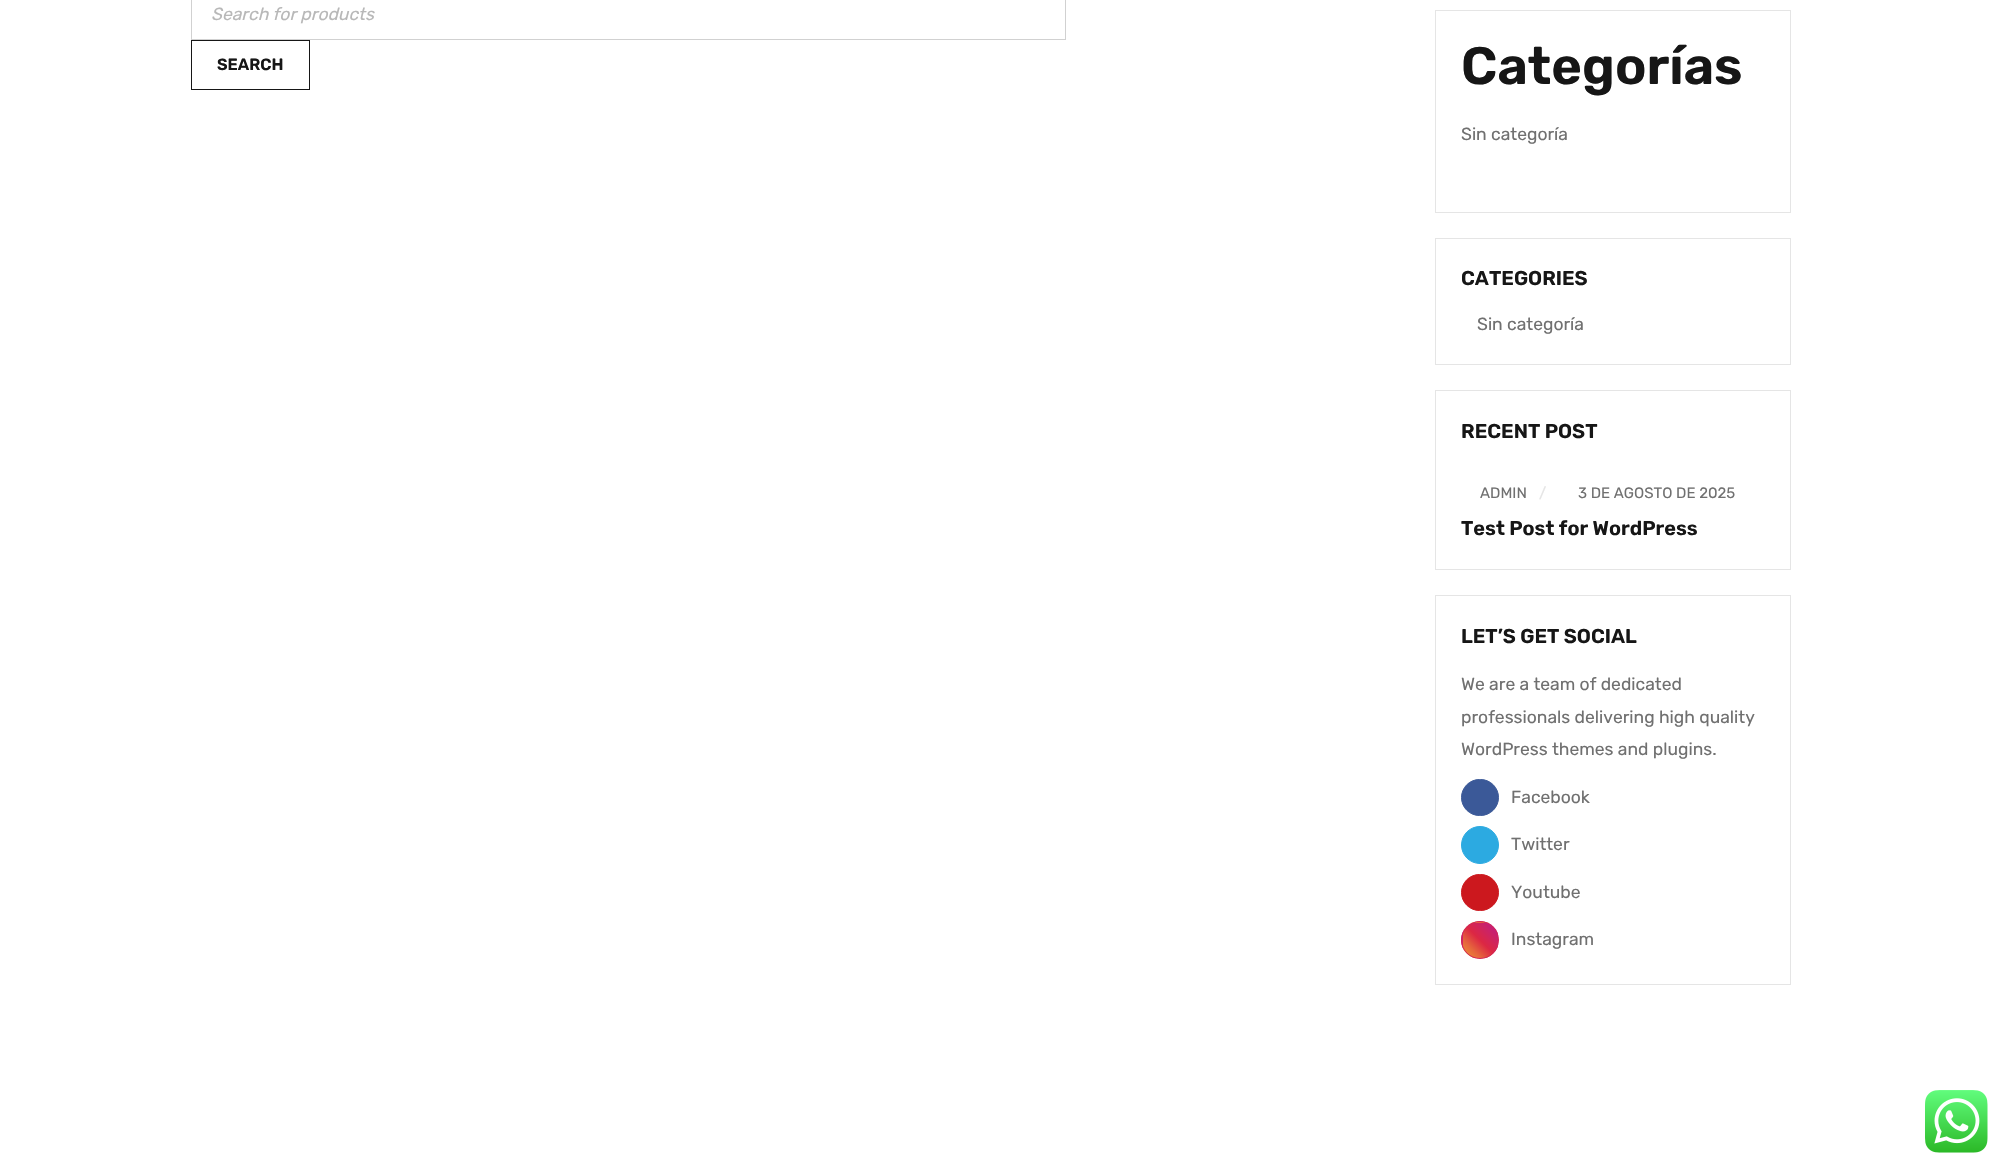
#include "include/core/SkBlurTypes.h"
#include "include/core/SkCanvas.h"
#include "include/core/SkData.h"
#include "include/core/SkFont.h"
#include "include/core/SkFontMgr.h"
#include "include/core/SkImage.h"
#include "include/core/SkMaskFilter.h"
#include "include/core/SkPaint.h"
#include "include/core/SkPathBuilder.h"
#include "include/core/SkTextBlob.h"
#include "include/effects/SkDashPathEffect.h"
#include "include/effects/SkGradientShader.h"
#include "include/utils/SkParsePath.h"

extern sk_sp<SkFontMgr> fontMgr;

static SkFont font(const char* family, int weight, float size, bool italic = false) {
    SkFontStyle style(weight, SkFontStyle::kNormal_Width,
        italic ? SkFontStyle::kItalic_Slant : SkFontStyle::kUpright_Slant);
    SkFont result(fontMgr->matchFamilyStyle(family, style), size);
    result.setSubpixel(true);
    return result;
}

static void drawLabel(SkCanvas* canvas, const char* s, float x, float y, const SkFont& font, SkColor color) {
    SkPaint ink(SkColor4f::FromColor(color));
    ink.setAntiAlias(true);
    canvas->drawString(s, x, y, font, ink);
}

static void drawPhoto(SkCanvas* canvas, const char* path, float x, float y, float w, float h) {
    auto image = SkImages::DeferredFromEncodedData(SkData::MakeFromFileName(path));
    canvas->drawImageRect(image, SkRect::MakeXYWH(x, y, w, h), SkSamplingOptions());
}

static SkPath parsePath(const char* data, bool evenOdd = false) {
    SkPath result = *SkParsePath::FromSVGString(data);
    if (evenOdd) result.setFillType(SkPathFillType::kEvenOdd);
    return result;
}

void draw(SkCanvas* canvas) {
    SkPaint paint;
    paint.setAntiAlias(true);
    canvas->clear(0xFFFFFFFF);
    paint.setStroke(true);
    paint.setStrokeWidth(1);
    paint.setColor(0xFFD1D1D1);
    canvas->drawRect(SkRect::MakeXYWH(191.5f, -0.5f, 874, 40), paint);
    SkFont font1 = font("Rubik", 400, 17.5f, true);
    drawLabel(canvas, "Search for products", 211, 20, font1, 0xFFB8B8B8);
    paint.setColor(0xFF161616);
    canvas->drawRect(SkRect::MakeXYWH(191.5f, 40.5f, 118, 49), paint);
    SkFont font2 = font("Rubik", 600, 16.25f);
    drawLabel(canvas, "SEARCH", 217, 70, font2, 0xFF161616);
    paint.setColor(0xFFE5E5E5);
    canvas->drawRect(SkRect::MakeXYWH(1435.5f, 10.5f, 355, 202), paint);
    SkFont font3 = font("Rubik", 600, 52.5f);
    drawLabel(canvas, "Categorías", 1461, 84, font3, 0xFF161616);
    SkFont font4 = font("Rubik", 400, 17.5f);
    drawLabel(canvas, "Sin categoría", 1461, 140, font4, 0xFF707070);
    canvas->drawRect(SkRect::MakeXYWH(1435.5f, 238.5f, 355, 126), paint);
    SkFont font5 = font("Rubik", 600, 20);
    drawLabel(canvas, "CATEGORIES", 1461, 285, font5, 0xFF161616);
    drawLabel(canvas, "Sin categoría", 1477, 330, font4, 0xFF707070);
    canvas->drawRect(SkRect::MakeXYWH(1435.5f, 390.5f, 355, 179), paint);
    drawLabel(canvas, "RECENT POST", 1461, 438, font5, 0xFF161616);
    SkFont font6 = font("Rubik", 400, 15);
    drawLabel(canvas, "ADMIN", 1480, 498, font6, 0xFF707070);
    drawLabel(canvas, "/", 1539, 498, font6, 0xFFE5E5E5);
    drawLabel(canvas, "3 DE AGOSTO DE 2025", 1578, 498, font6, 0xFF707070);
    drawLabel(canvas, "Test Post for WordPress", 1461, 535, font5, 0xFF161616);
    canvas->drawRect(SkRect::MakeXYWH(1435.5f, 595.5f, 355, 389), paint);
    drawLabel(canvas, "LET’S GET SOCIAL", 1461, 643, font5, 0xFF161616);
    drawLabel(canvas, "We are a team of dedicated", 1461, 690, font4, 0xFF707070);
    drawLabel(canvas, "professionals delivering high quality", 1461, 723, font4, 0xFF707070);
    drawLabel(canvas, "WordPress themes and plugins.", 1461, 755, font4, 0xFF707070);
    paint.setStroke(false);
    paint.setColor(0xFF3B5998);
    canvas->drawRoundRect(SkRect::MakeXYWH(1461.5f, 779.5f, 37, 36), 18, 18, paint);
    paint.setStroke(true);
    canvas->drawRoundRect(SkRect::MakeXYWH(1461.5f, 779.5f, 37, 36), 18, 18, paint);
    drawLabel(canvas, "Facebook", 1511, 803, font4, 0xFF707070);
    paint.setStroke(false);
    paint.setColor(0xFF2CAAE1);
    canvas->drawCircle(1480, 845, 18.5f, paint);
    paint.setStroke(true);
    canvas->drawCircle(1480, 845, 18.5f, paint);
    drawLabel(canvas, "Twitter", 1511, 850, font4, 0xFF707070);
    paint.setStroke(false);
    paint.setColor(0xFFCC181E);
    canvas->drawRoundRect(SkRect::MakeXYWH(1461.5f, 874.5f, 37, 36), 18, 18, paint);
    paint.setStroke(true);
    canvas->drawRoundRect(SkRect::MakeXYWH(1461.5f, 874.5f, 37, 36), 18, 18, paint);
    drawLabel(canvas, "Youtube", 1511, 898, font4, 0xFF707070);
    canvas->save();
    canvas->clipPath(parsePath("M1480 921C1490.5 921 1499 929.5 1499 940C1499 950.5 1490.5 959 1480 959C1469.5 959 1461 950.5 1461 940C1461 929.5 1469.5 921 1480 921Z"), true);
    paint.setStroke(false);
    {
        const SkColor colors[] = {0xFFF09433, 0xFFE6683C, 0xFFDC2743, 0xFFCC2366, 0xFFBC1888};
        const float stops[] = {0, 0.25f, 0.5f, 0.75f, 1};
        const SkPoint ends[] = {{1463, 923}, {1498, 888}};
        paint.setShader(SkGradientShader::MakeLinear(ends, colors, stops, 5, SkTileMode::kClamp));
        paint.setAlpha(255);
    }
    canvas->drawRect(SkRect::MakeXYWH(1463, 921, 26, 2), paint);
    {
        const SkColor colors[] = {0xFFF09433, 0xFFE6683C, 0xFFDC2743, 0xFFCC2366, 0xFFBC1888};
        const float stops[] = {0, 0.25f, 0.5f, 0.75f, 1};
        const SkPoint ends[] = {{1428, 958}, {1463, 923}};
        paint.setShader(SkGradientShader::MakeLinear(ends, colors, stops, 5, SkTileMode::kClamp));
        paint.setAlpha(255);
    }
    canvas->drawRect(SkRect::MakeXYWH(1461, 923, 2, 26), paint);
    {
        const SkColor colors[] = {0xFFF09433, 0xFFE6683C, 0xFFDC2743, 0xFFCC2366, 0xFFBC1888};
        const float stops[] = {0, 0.25f, 0.5f, 0.75f, 1};
        const SkPoint ends[] = {{1463, 958}, {1498, 923}};
        paint.setShader(SkGradientShader::MakeLinear(ends, colors, stops, 5, SkTileMode::kClamp));
        paint.setAlpha(255);
    }
    canvas->drawRect(SkRect::MakeXYWH(1463, 923, 35, 35), paint);
    canvas->restore();
    paint.setStroke(true);
    paint.setShader(nullptr);
    paint.setColor(0xFFD32558);
    canvas->drawCircle(1480, 940, 18.5f, paint);
    drawLabel(canvas, "Instagram", 1511, 945, font4, 0xFF707070);
    drawPhoto(canvas, "assets/img1.png", 1925, 1090, 63, 63);
}
